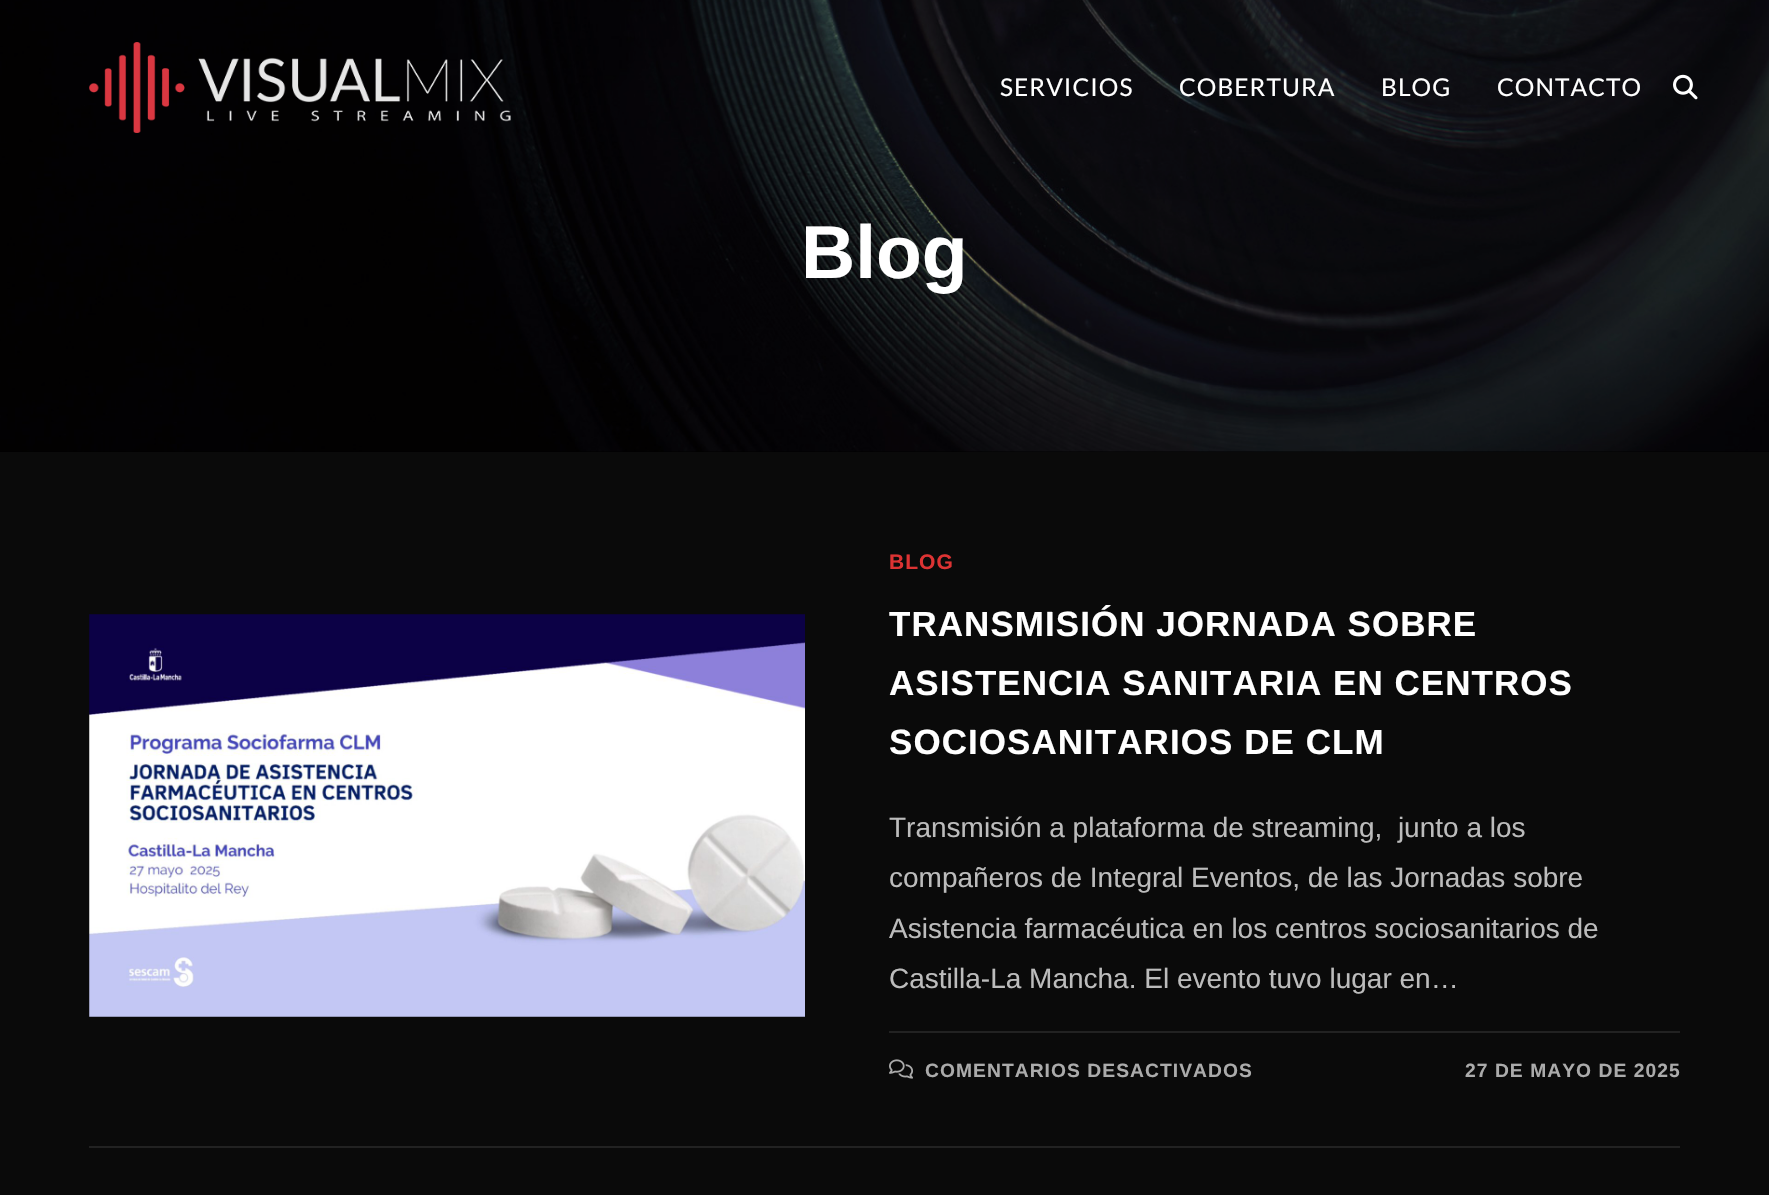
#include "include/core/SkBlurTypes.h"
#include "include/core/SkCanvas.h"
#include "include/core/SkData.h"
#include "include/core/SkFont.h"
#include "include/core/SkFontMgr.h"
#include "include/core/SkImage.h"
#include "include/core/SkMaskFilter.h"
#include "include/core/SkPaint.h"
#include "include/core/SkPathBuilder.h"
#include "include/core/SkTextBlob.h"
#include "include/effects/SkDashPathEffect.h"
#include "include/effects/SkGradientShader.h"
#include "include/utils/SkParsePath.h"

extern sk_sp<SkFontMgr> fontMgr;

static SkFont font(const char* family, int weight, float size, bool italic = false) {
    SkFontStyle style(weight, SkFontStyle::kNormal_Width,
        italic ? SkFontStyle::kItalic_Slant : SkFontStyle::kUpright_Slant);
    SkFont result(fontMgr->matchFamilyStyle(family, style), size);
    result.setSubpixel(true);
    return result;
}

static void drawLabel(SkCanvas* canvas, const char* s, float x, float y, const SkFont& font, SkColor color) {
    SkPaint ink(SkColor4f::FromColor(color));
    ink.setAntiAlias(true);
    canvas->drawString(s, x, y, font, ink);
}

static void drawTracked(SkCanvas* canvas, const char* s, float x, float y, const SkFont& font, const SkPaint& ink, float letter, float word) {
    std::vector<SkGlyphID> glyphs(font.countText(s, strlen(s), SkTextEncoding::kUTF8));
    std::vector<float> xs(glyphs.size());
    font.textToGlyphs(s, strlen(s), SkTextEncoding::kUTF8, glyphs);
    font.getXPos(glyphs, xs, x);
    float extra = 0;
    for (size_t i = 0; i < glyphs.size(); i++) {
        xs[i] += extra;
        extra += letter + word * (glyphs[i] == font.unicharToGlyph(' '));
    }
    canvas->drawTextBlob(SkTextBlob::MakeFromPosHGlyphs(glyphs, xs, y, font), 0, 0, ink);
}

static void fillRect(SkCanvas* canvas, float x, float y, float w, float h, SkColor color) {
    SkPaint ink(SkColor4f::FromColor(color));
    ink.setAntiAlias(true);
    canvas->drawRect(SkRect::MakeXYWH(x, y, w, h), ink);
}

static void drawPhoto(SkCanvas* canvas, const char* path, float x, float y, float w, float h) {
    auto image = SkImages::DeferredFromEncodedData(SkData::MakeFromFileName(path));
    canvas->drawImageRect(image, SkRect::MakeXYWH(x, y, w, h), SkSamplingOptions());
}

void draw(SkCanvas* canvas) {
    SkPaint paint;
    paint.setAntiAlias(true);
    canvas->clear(0xFF0A0A0A);
    fillRect(canvas, 0, 451, 1769, 1, 0xFF000000);
    drawPhoto(canvas, "assets/img3.png", 0, 0, 1769, 452);
    drawPhoto(canvas, "assets/img1.png", 89, 42, 422, 91);
    SkFont font1 = font("Lato", 400, 24.5f);
    paint.setColor(0xFFFFFFFF);
    drawTracked(canvas, "SERVICIOS", 1000, 96, font1, paint, 1.05f, 0);
    drawTracked(canvas, "COBERTURA", 1179, 96, font1, paint, 1.05f, 0);
    drawTracked(canvas, "BLOG", 1381, 96, font1, paint, 1.05f, 0);
    drawTracked(canvas, "CONTACTO", 1497, 96, font1, paint, 1.05f, 0);
    drawPhoto(canvas, "assets/img2.png", 1673, 74, 25, 26);
    SkFont font2 = font("Liberation Sans", 700, 75);
    drawLabel(canvas, "Blog", 801, 278, font2, 0xFFFFFFFF);
    fillRect(canvas, 89, 1146, 1591, 2, 0xFF222222);
    drawPhoto(canvas, "assets/img4.png", 89, 614, 716, 403);
    SkFont font3 = font("Liberation Sans", 700, 21);
    paint.setColor(0xFFDD3333);
    drawTracked(canvas, "BLOG", 889, 569, font3, paint, 1.05f, 0);
    SkFont font4 = font("Liberation Sans", 700, 35);
    paint.setColor(0xFFFFFFFF);
    drawTracked(canvas, "TRANSMISIÓN JORNADA SOBRE", 889, 636, font4, paint, 1.05f, 0);
    drawTracked(canvas, "ASISTENCIA SANITARIA EN CENTROS", 889, 695, font4, paint, 1.05f, 0);
    drawTracked(canvas, "SOCIOSANITARIOS DE CLM", 889, 754, font4, paint, 1.05f, 0);
    SkFont font5 = font("Liberation Sans", 400, 28);
    drawLabel(canvas, "Transmisión a plataforma de streaming,  junto a los", 889, 837, font5, 0xFFBCBCBC);
    drawLabel(canvas, "compañeros de Integral Eventos, de las Jornadas sobre", 889, 887, font5, 0xFFBCBCBC);
    drawLabel(canvas, "Asistencia farmacéutica en los centros sociosanitarios de", 889, 938, font5, 0xFFBCBCBC);
    drawLabel(canvas, "Castilla-La Mancha. El evento tuvo lugar en…", 889, 988, font5, 0xFFBCBCBC);
    fillRect(canvas, 889, 1031, 791, 2, 0xFF222222);
    drawPhoto(canvas, "assets/img5.png", 889, 1059, 24, 20);
    SkFont font6 = font("Liberation Sans", 700, 19.25f);
    paint.setColor(0xFFABABAB);
    drawTracked(canvas, "COMENTARIOS DESACTIVADOS", 925, 1077, font6, paint, 1.05f, 0);
    drawTracked(canvas, "27 DE MAYO DE 2025", 1465, 1077, font6, paint, 1.05f, 0);
}
